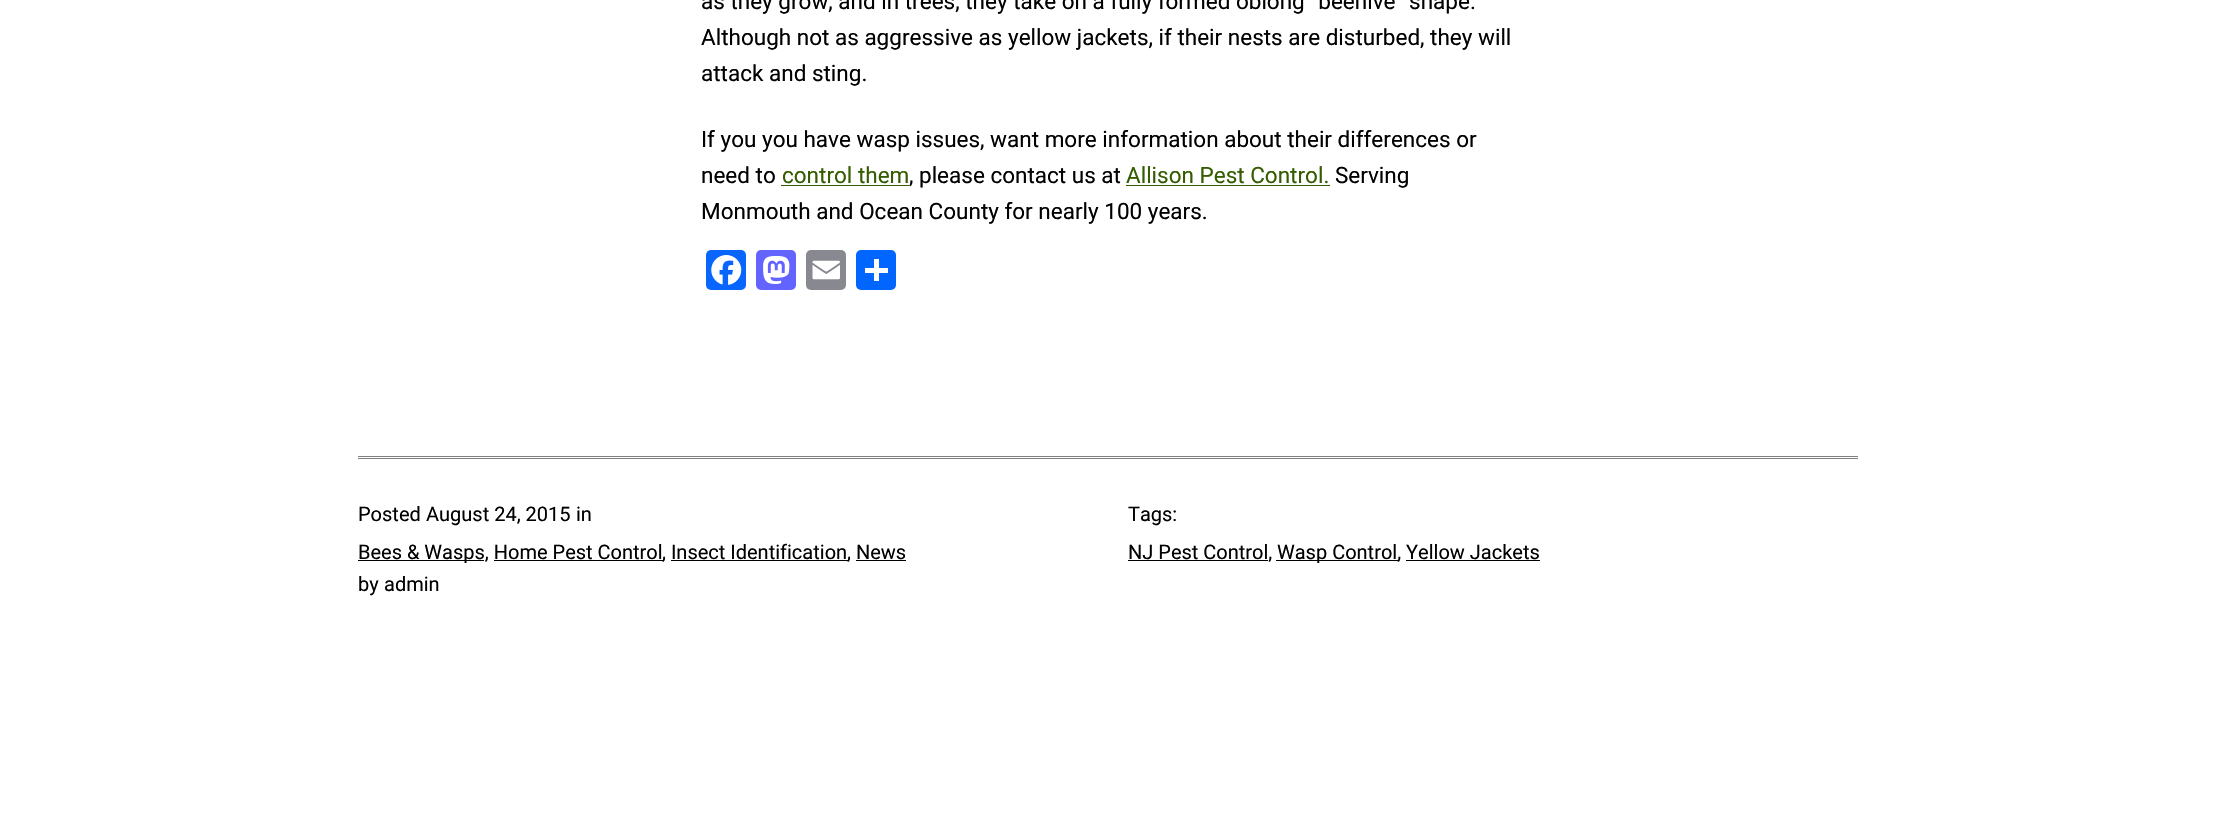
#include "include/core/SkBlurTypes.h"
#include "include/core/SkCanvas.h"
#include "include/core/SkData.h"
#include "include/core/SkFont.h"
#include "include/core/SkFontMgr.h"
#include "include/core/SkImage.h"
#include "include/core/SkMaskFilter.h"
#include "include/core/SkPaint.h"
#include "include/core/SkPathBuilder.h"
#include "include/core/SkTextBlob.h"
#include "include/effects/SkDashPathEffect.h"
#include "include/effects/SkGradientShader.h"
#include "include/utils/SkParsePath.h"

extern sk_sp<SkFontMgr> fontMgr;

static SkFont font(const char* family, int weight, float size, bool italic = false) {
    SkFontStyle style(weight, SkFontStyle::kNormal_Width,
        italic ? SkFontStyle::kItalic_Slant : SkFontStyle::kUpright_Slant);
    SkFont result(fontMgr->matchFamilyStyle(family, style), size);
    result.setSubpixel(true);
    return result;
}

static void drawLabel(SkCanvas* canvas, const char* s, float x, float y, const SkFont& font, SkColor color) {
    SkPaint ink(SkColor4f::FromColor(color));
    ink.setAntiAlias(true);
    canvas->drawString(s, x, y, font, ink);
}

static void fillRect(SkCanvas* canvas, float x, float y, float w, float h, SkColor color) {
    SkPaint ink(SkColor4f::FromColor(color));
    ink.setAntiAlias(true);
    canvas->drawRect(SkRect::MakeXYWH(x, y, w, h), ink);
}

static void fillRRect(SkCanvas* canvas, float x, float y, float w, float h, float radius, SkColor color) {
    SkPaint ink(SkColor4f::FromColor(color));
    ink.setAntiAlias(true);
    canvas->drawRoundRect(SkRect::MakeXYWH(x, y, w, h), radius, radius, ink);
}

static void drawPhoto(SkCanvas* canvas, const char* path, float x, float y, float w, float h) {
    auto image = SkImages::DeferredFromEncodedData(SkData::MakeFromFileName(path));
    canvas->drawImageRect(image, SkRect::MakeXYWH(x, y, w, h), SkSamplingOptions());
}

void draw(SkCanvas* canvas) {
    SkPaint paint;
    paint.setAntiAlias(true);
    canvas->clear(0xFFFFFFFF);
    SkFont font1 = font("Roboto", 400, 22.5f);
    drawLabel(canvas, "as they grow, and in trees, they take on a fully formed oblong “beehive” shape.", 701, 9, font1, 0xFF000000);
    drawLabel(canvas, "Although not as aggressive as yellow jackets, if their nests are disturbed, they will", 701, 45, font1, 0xFF000000);
    drawLabel(canvas, "attack and sting.", 701, 81, font1, 0xFF000000);
    drawLabel(canvas, "If you you have wasp issues, want more information about their differences or", 701, 147, font1, 0xFF000000);
    drawLabel(canvas, "need to", 701, 183, font1, 0xFF000000);
    drawLabel(canvas, "control them", 782, 183, font1, 0xFF345C00);
    fillRect(canvas, 781, 185, 128, 1, 0xFF345C00);
    drawLabel(canvas, ", please contact us at", 909, 183, font1, 0xFF000000);
    drawLabel(canvas, "Allison Pest Control.", 1126, 183, font1, 0xFF345C00);
    fillRect(canvas, 1126, 185, 204, 1, 0xFF345C00);
    drawLabel(canvas, "Serving", 1335, 183, font1, 0xFF000000);
    drawLabel(canvas, "Monmouth and Ocean County for nearly 100 years.", 701, 219, font1, 0xFF000000);
    fillRRect(canvas, 706, 250, 40, 40, 5, 0xFF0866FF);
    drawPhoto(canvas, "assets/img1.png", 711, 255, 31, 30);
    fillRRect(canvas, 756, 250, 40, 40, 5, 0xFF6364FF);
    drawPhoto(canvas, "assets/img2.png", 763, 255, 27, 29);
    fillRRect(canvas, 806, 250, 40, 40, 5, 0xFF888990);
    drawPhoto(canvas, "assets/img3.png", 812, 260, 28, 20);
    fillRRect(canvas, 856, 250, 40, 40, 5, 0xFF0166FF);
    fillRect(canvas, 874, 259, 5, 22, 0xFFFFFFFF);
    fillRect(canvas, 865, 268, 23, 5, 0xFFFFFFFF);
    fillRect(canvas, 358, 456, 1500, 1, 0xFF808080);
    fillRect(canvas, 358, 458, 1500, 1, 0xFF808080);
    SkFont font2 = font("Roboto", 400, 20);
    drawLabel(canvas, "Posted", 358, 521, font2, 0xFF000000);
    drawLabel(canvas, "August 24, 2015", 426, 521, font2, 0xFF000000);
    drawLabel(canvas, "in", 576, 521, font2, 0xFF000000);
    fillRect(canvas, 358, 560, 126, 1, 0xFF000000);
    drawLabel(canvas, "Bees & Wasps, Home Pest Control", 358, 559, font2, 0xFF000000);
    fillRect(canvas, 494, 560, 169, 1, 0xFF000000);
    drawLabel(canvas, ", Insect Identification", 662, 559, font2, 0xFF000000);
    fillRect(canvas, 671, 560, 177, 1, 0xFF000000);
    drawLabel(canvas, ", News", 847, 559, font2, 0xFF000000);
    fillRect(canvas, 856, 560, 50, 1, 0xFF000000);
    drawLabel(canvas, "by", 358, 591, font2, 0xFF000000);
    drawLabel(canvas, "admin", 384, 591, font2, 0xFF000000);
    drawLabel(canvas, "Tags:", 1128, 521, font2, 0xFF000000);
    fillRect(canvas, 1128, 560, 140, 1, 0xFF000000);
    drawLabel(canvas, "NJ Pest Control,", 1128, 559, font2, 0xFF000000);
    fillRect(canvas, 1276, 560, 122, 1, 0xFF000000);
    drawLabel(canvas, "Wasp Control, Yellow Jackets", 1277, 559, font2, 0xFF000000);
    fillRect(canvas, 1406, 560, 134, 1, 0xFF000000);
}
